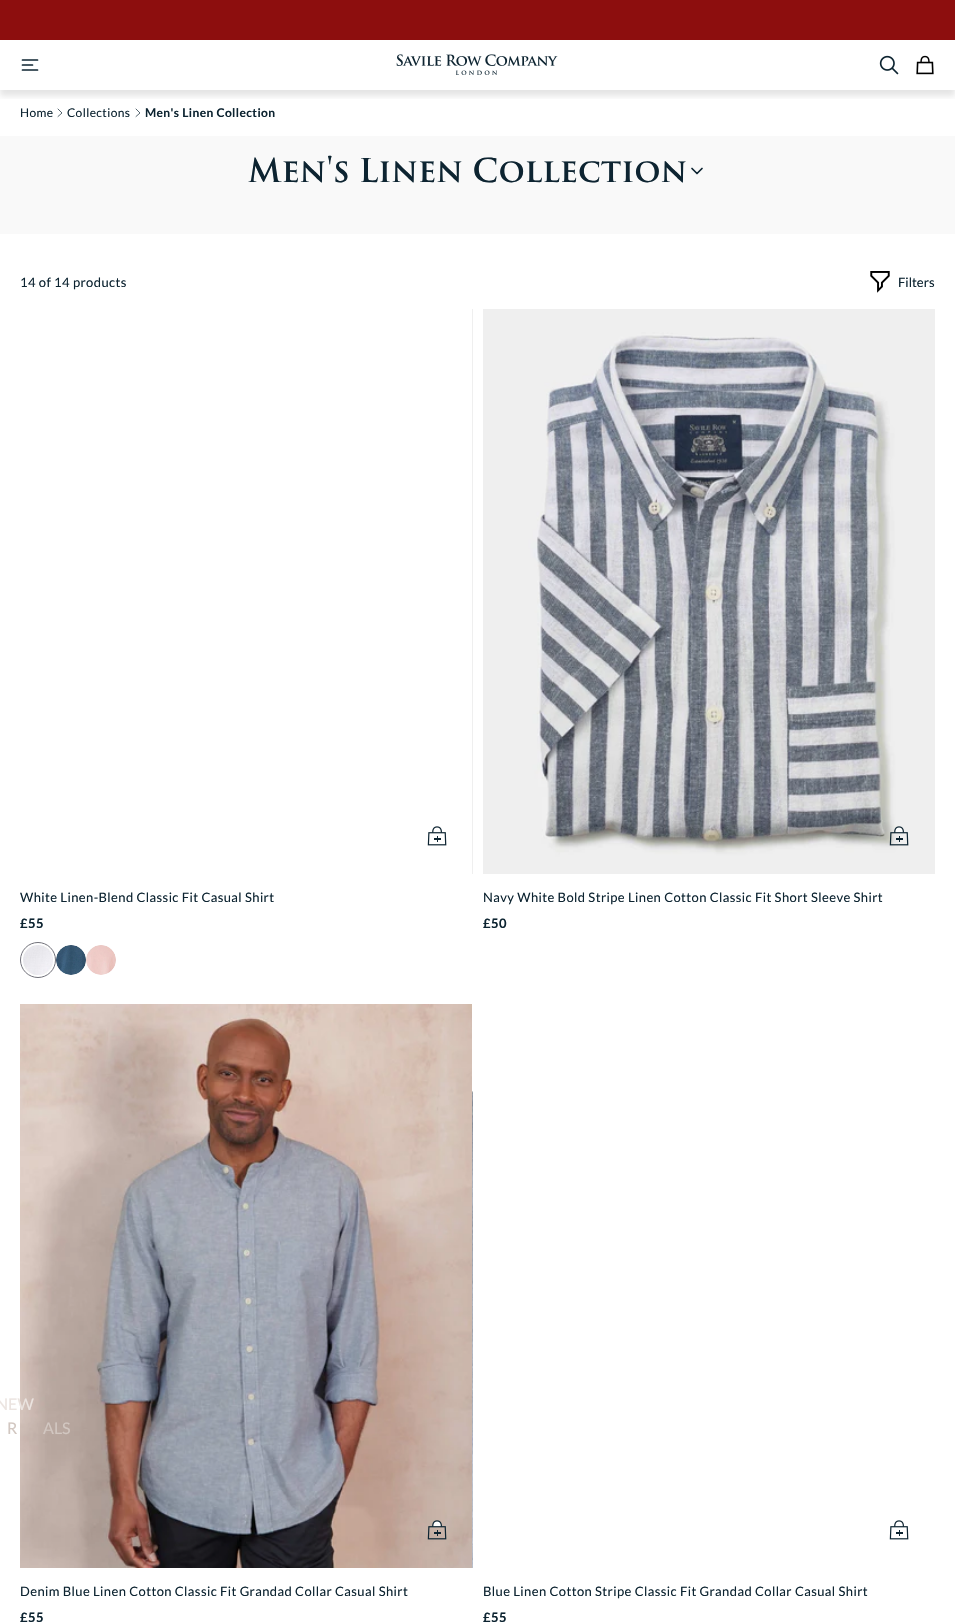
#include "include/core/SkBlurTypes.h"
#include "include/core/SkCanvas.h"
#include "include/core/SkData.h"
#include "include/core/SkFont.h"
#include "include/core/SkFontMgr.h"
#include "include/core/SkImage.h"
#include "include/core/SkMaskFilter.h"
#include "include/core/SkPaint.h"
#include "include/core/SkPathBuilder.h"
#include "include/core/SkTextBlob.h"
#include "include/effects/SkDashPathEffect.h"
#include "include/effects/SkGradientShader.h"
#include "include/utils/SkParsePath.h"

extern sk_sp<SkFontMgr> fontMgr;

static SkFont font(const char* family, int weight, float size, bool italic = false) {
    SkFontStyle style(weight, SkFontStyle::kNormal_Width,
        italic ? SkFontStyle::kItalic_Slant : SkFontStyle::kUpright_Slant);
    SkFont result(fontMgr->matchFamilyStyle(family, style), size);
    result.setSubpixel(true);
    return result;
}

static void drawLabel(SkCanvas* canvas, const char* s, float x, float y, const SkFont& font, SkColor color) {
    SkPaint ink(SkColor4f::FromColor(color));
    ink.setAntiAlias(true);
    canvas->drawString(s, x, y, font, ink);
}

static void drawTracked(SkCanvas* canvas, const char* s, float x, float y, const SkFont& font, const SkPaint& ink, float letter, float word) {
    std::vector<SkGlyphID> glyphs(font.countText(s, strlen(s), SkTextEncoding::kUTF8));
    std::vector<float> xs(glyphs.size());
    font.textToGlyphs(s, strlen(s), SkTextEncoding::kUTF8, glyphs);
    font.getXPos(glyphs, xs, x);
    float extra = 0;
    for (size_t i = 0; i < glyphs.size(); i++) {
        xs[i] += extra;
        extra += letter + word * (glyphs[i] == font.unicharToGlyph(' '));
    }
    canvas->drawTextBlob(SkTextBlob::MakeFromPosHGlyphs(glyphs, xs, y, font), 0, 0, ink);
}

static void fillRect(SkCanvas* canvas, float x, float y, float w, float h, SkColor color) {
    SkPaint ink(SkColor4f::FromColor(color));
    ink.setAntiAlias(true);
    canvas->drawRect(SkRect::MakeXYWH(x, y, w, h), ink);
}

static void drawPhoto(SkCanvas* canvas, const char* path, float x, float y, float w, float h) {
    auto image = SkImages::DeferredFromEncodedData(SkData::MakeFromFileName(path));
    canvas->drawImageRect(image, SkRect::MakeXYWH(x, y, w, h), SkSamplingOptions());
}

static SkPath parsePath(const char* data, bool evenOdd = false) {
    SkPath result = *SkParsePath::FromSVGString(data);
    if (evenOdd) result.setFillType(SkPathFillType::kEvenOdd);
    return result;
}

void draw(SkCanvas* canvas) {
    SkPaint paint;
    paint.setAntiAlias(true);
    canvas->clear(0xFFFFFFFF);
    SkFont font1 = font("Lato", 400, 12);
    paint.setColor(0xFF0D2431);
    drawTracked(canvas, "Home", 20, 117, font1, paint, 0.4f, 0);
    paint.setStroke(true);
    paint.setStrokeWidth(0.7f);
    paint.setStrokeCap(SkPaint::kRound_Cap);
    canvas->drawPath(parsePath("M58 109L62 113L58 116.5"), paint);
    paint.setStroke(false);
    drawTracked(canvas, "Collections", 67, 117, font1, paint, 0.4f, 0);
    paint.setStroke(true);
    canvas->drawPath(parsePath("M136 109L140 113L136 116.5"), paint);
    SkFont font2 = font("Lato", 700, 12);
    paint.setStroke(false);
    drawTracked(canvas, "Men's Linen Collection", 145, 117, font2, paint, 0.4f, 0);
    fillRect(canvas, 0, 136, 955, 98, 0xFFF9F9F9);
    SkFont font3 = font("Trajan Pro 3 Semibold", 600, 32);
    drawLabel(canvas, "Men's Linen Collection", 248, 182, font3, 0xFF0D2431);
    paint.setStroke(true);
    paint.setStrokeWidth(1.7f);
    paint.setStrokeJoin(SkPaint::kRound_Join);
    canvas->drawPath(parsePath("M692 168.5L697 173.5L702 168.5"), paint);
    SkFont font4 = font("Lato", 400, 13);
    paint.setStroke(false);
    drawTracked(canvas, "14 of 14 products", 20, 287, font4, paint, 0.4f, 0);
    drawPhoto(canvas, "assets/img1.png", 870, 271, 20, 22);
    drawLabel(canvas, "Filters", 898, 287, font4, 0xFF0D2431);
    drawPhoto(canvas, "assets/img2.png", 427, 826, 20, 20);
    fillRect(canvas, 472, 309, 1, 565, 0xFFEFEFEF);
    drawTracked(canvas, "White Linen-Blend Classic Fit Casual Shirt", 20, 902, font4, paint, 0.4f, 0);
    SkFont font5 = font("Lato", 700, 13);
    drawTracked(canvas, "£55", 20, 928, font5, paint, 0.4f, 0);
    drawPhoto(canvas, "assets/img3.png", 23, 945, 30, 30);
    paint.setStroke(true);
    paint.setStrokeWidth(1);
    paint.setStrokeCap(SkPaint::kButt_Cap);
    paint.setStrokeJoin(SkPaint::kMiter_Join);
    paint.setColor(0xFF71717A);
    canvas->drawCircle(38, 960, 17.5f, paint);
    drawPhoto(canvas, "assets/img4.png", 56, 945, 30, 30);
    drawPhoto(canvas, "assets/img5.png", 86, 945, 30, 30);
    drawPhoto(canvas, "assets/img6.png", 483, 309, 452, 565);
    drawPhoto(canvas, "assets/img7.png", 889, 826, 20, 20);
    paint.setStroke(false);
    paint.setColor(0xFF0D2431);
    drawTracked(canvas, "Navy White Bold Stripe Linen Cotton Classic Fit Short Sleeve Shirt", 483, 902, font4, paint, 0.4f, 0);
    drawTracked(canvas, "£50", 483, 928, font5, paint, 0.4f, 0);
    drawPhoto(canvas, "assets/img8.png", 20, 1004, 452, 564);
    drawPhoto(canvas, "assets/img9.png", 472, 1091, 1, 477);
    drawPhoto(canvas, "assets/img10.png", 427, 1520, 20, 20);
    drawTracked(canvas, "Denim Blue Linen Cotton Classic Fit Grandad Collar Casual Shirt", 20, 1596, font4, paint, 0.4f, 0);
    drawTracked(canvas, "£55", 20, 1622, font5, paint, 0.4f, 0);
    drawPhoto(canvas, "assets/img2.png", 889, 1520, 20, 20);
    drawTracked(canvas, "Blue Linen Cotton Stripe Classic Fit Grandad Collar Casual Shirt", 483, 1596, font4, paint, 0.4f, 0);
    drawTracked(canvas, "£55", 483, 1622, font5, paint, 0.4f, 0);
    canvas->save();
    canvas->clipRect(SkRect::MakeXYWH(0, 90, 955, 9));
    paint.setColor(0x1A000000);
    paint.setMaskFilter(SkMaskFilter::MakeBlur(kNormal_SkBlurStyle, 3));
    canvas->drawRect(SkRect::MakeXYWH(0, 46, 955, 50), paint);
    paint.setMaskFilter(nullptr);
    canvas->restore();
    fillRect(canvas, 0, 0, 955, 40, 0xFF8D0E0E);
    paint.setStroke(true);
    paint.setStrokeWidth(1.7f);
    paint.setStrokeCap(SkPaint::kRound_Cap);
    paint.setStrokeJoin(SkPaint::kRound_Join);
    paint.setColor(0xFF0D2431);
    canvas->drawPath(parsePath("M22.5 65H32.5M22.5 60H37.5M22.5 70H37.5"), paint);
    drawPhoto(canvas, "assets/img11.png", 396, 54, 162, 21);
    drawPhoto(canvas, "assets/img12.png", 879, 55, 20, 20);
    drawPhoto(canvas, "assets/img13.png", 916, 55, 18, 20);
    SkFont font6 = font("Lato", 400, 16);
    drawLabel(canvas, "NEW", -4, 1410, font6, 0xFFEBE4E0);
    drawLabel(canvas, "R", 7, 1434, font6, 0xFFD2C7C1);
    drawLabel(canvas, "ALS", 43, 1434, font6, 0xFFD2C7C1);
}
